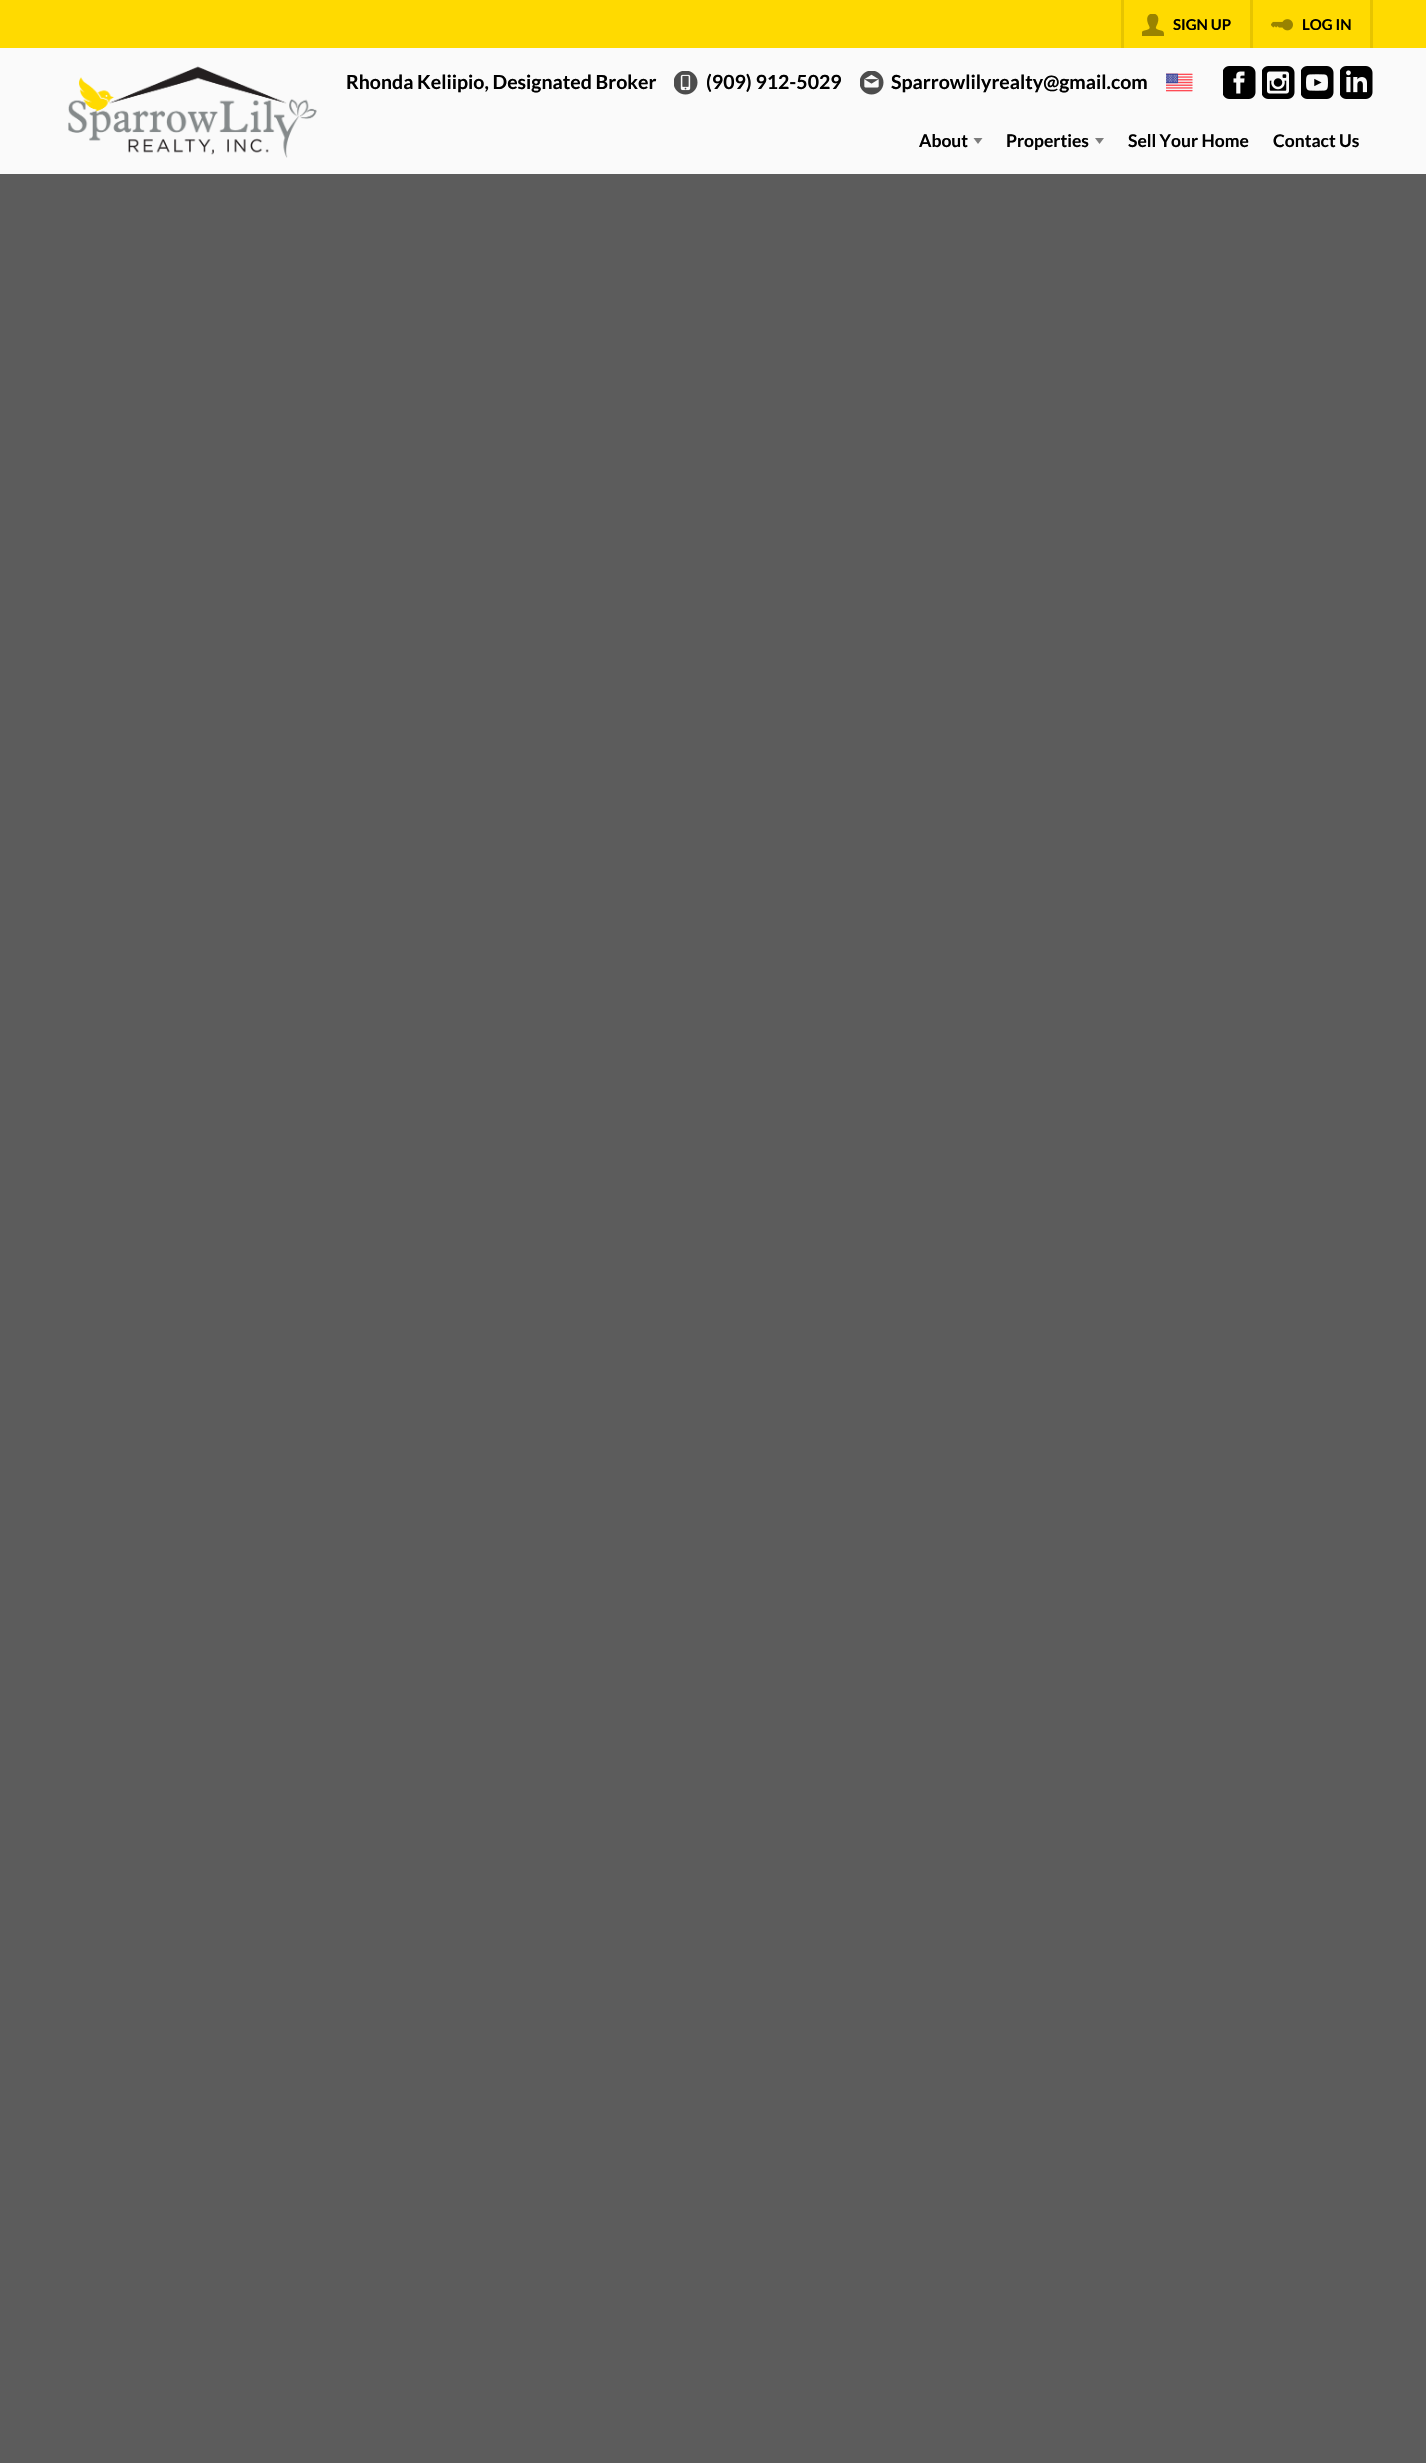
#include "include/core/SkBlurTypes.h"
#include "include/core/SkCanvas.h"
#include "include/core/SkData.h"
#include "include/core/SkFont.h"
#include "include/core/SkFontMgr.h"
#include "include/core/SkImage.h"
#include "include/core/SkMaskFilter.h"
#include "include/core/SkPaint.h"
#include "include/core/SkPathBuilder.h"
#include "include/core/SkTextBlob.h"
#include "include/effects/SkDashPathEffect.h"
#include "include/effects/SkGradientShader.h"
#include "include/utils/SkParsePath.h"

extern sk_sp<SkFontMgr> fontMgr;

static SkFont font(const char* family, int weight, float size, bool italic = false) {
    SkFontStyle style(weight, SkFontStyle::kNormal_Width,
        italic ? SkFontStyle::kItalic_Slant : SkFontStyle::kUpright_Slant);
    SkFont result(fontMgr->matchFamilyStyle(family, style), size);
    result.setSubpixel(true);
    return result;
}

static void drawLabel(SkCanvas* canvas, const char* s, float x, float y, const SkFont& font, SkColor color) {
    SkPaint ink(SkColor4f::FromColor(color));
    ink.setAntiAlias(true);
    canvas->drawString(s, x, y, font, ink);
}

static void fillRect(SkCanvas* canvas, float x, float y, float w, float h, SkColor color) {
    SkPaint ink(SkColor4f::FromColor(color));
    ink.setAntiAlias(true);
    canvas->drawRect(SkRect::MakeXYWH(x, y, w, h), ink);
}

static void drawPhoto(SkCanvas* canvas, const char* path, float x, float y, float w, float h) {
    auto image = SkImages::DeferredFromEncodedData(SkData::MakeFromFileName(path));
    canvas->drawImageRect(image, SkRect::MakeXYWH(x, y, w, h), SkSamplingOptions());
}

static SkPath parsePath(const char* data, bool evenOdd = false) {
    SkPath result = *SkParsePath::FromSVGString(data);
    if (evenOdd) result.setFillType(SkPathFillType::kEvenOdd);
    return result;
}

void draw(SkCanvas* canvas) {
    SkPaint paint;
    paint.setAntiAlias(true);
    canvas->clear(0xFF5C5C5C);
    fillRect(canvas, 0, 0, 1426, 48, 0xFFFFDA00);
    fillRect(canvas, 1370, 0, 3, 48, 0xFFE6C400);
    fillRect(canvas, 1121, 0, 3, 48, 0xFFE6C400);
    drawPhoto(canvas, "assets/img1.png", 1142, 14, 22, 22);
    SkFont font1 = font("Lato", 700, 15);
    drawLabel(canvas, "SIGN UP", 1173, 30, font1, 0xFF000000);
    fillRect(canvas, 1250, 0, 3, 48, 0xFFE6C400);
    drawPhoto(canvas, "assets/img2.png", 1271, 19, 22, 12);
    drawLabel(canvas, "LOG IN", 1302, 30, font1, 0xFF000000);
    fillRect(canvas, 0, 48, 1426, 126, 0xFFFAFAFA);
    drawPhoto(canvas, "assets/img3.png", 68, 66, 249, 92);
    SkFont font2 = font("Lato", 700, 19.5f);
    drawLabel(canvas, "Rhonda Keliipio, Designated Broker", 346, 89, font2, 0xFF000000);
    drawPhoto(canvas, "assets/img4.png", 674, 71, 24, 24);
    drawLabel(canvas, "(909) 912-5029", 706, 89, font2, 0xFF000000);
    drawPhoto(canvas, "assets/img5.png", 860, 71, 24, 24);
    drawLabel(canvas, "Sparrowlilyrealty@gmail.com", 891, 89, font2, 0xFF000000);
    drawPhoto(canvas, "assets/img6.png", 1166, 73, 27, 19);
    drawPhoto(canvas, "assets/img7.png", 1223, 66, 33, 33);
    drawPhoto(canvas, "assets/img8.png", 1262, 66, 33, 33);
    drawPhoto(canvas, "assets/img9.png", 1301, 66, 33, 33);
    drawPhoto(canvas, "assets/img10.png", 1340, 66, 33, 33);
    SkFont font3 = font("Lato", 700, 17.5f);
    drawLabel(canvas, "About", 919, 147, font3, 0xFF000000);
    paint.setColor(0xFF7D7D7D);
    canvas->drawPath(parsePath("M973.5 138H982.5L978 144Z"), paint);
    drawLabel(canvas, "Properties", 1006, 147, font3, 0xFF000000);
    canvas->drawPath(parsePath("M1095 138H1104L1099.5 144Z"), paint);
    drawLabel(canvas, "Sell Your Home", 1128, 147, font3, 0xFF000000);
    drawLabel(canvas, "Contact Us", 1273, 147, font3, 0xFF000000);
}
